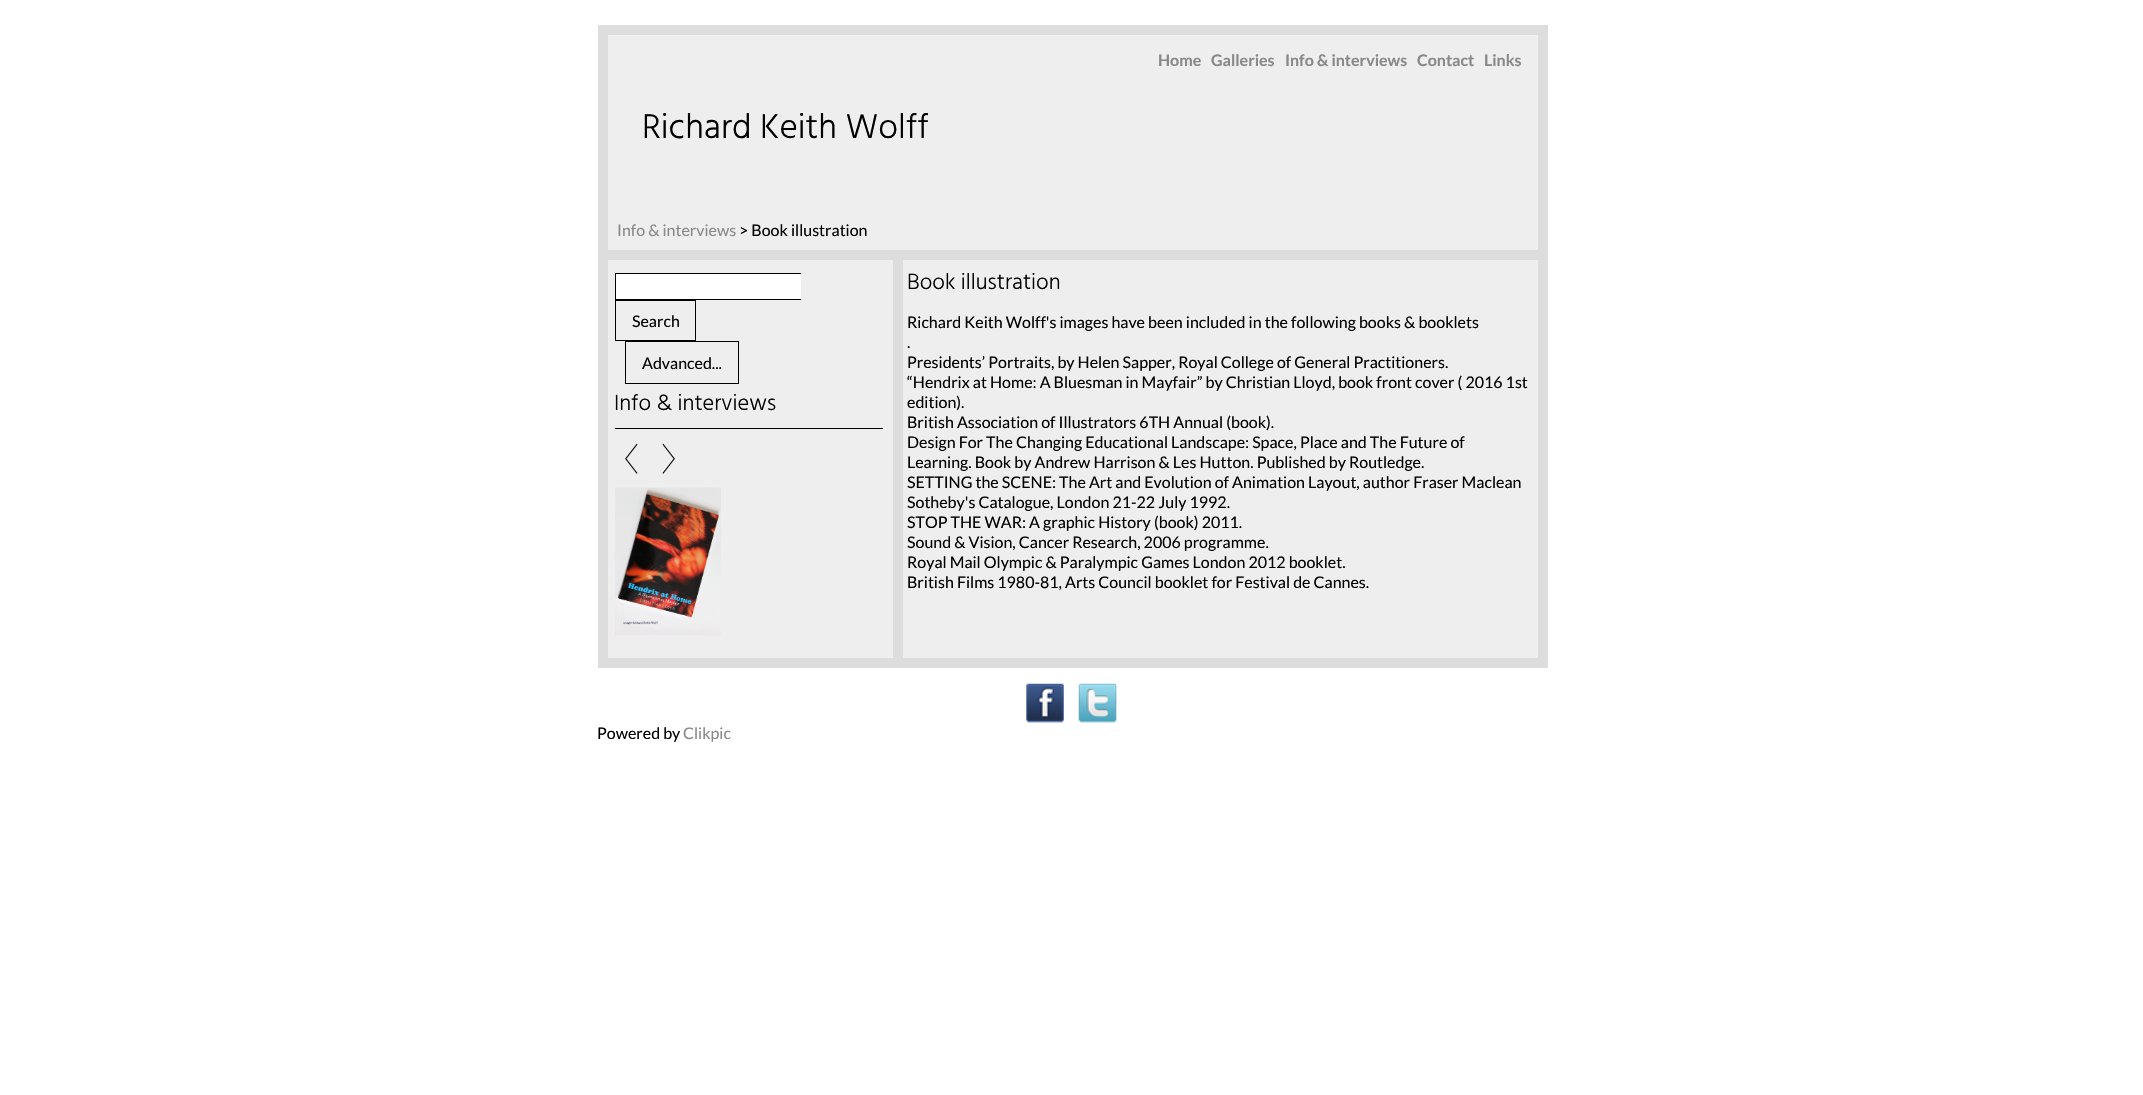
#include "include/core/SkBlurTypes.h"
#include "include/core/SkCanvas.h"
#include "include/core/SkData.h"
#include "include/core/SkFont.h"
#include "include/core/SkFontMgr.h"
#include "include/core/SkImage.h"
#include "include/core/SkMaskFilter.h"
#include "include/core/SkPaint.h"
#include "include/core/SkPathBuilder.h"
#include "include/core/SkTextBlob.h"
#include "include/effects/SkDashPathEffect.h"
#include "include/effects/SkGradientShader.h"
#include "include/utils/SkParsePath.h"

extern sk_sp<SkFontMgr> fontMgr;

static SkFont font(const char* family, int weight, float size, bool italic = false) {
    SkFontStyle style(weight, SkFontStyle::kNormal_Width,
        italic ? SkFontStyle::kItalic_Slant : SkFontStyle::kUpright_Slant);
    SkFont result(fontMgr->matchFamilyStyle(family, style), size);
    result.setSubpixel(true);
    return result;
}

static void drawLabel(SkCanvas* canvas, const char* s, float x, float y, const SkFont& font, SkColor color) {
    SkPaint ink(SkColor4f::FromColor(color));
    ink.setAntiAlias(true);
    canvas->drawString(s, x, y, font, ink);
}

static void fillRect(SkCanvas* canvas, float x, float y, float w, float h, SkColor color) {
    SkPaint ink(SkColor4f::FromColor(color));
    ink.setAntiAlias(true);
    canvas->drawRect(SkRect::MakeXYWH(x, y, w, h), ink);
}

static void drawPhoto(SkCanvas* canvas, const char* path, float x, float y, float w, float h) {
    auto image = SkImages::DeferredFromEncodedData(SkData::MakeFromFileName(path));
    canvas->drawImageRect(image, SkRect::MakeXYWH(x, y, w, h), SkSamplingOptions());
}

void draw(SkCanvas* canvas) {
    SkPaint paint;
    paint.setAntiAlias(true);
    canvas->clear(0xFFFFFFFF);
    fillRect(canvas, 608, 35, 930, 215, 0xFFEEEEEE);
    fillRect(canvas, 608, 25, 930, 10, 0xFFDDDDDD);
    fillRect(canvas, 1538, 25, 10, 633, 0xFFDDDDDD);
    fillRect(canvas, 598, 25, 10, 643, 0xFFDDDDDD);
    SkFont font1 = font("Lato", 700, 16);
    drawLabel(canvas, "Home", 1158, 66, font1, 0xFF888888);
    drawLabel(canvas, "Galleries", 1211, 66, font1, 0xFF888888);
    drawLabel(canvas, "Info & interviews", 1285, 66, font1, 0xFF888888);
    drawLabel(canvas, "Contact", 1417, 66, font1, 0xFF888888);
    drawLabel(canvas, "Links", 1484, 66, font1, 0xFF888888);
    SkFont font2 = font("Hind", 300, 35.25f);
    drawLabel(canvas, "Richard Keith Wolff", 642, 138, font2, 0xFF000000);
    SkFont font3 = font("Lato", 400, 16);
    drawLabel(canvas, "Info & interviews", 617, 236, font3, 0xFF888888);
    drawLabel(canvas, "> Book illustration", 739, 236, font3, 0xFF000000);
    fillRect(canvas, 608, 260, 930, 398, 0xFFEEEEEE);
    fillRect(canvas, 608, 250, 285, 10, 0xFFDDDDDD);
    fillRect(canvas, 893, 250, 10, 408, 0xFFDDDDDD);
    fillRect(canvas, 608, 658, 940, 10, 0xFFDDDDDD);
    fillRect(canvas, 616, 274, 185, 25, 0xFFFFFFFF);
    canvas->save();
    canvas->clipRect(SkRect::MakeXYWH(615, 270, 186, 116));
    paint.setStroke(true);
    paint.setStrokeWidth(1);
    paint.setColor(0xFF000000);
    canvas->drawRect(SkRect::MakeXYWH(615.5f, 273.5f, 192, 26), paint);
    canvas->restore();
    canvas->drawRect(SkRect::MakeXYWH(615.5f, 300.5f, 80, 40), paint);
    drawLabel(canvas, "Search", 632, 327, font3, 0xFF000000);
    canvas->drawRect(SkRect::MakeXYWH(625.5f, 341.5f, 113, 42), paint);
    drawLabel(canvas, "Advanced...", 642, 369, font3, 0xFF000000);
    fillRect(canvas, 615, 428, 268, 1, 0xFF000000);
    SkFont font4 = font("Hind", 300, 22.5f);
    drawLabel(canvas, "Info & interviews", 614, 410, font4, 0xFF000000);
    drawPhoto(canvas, "assets/img1.png", 625, 443, 13, 31);
    drawPhoto(canvas, "assets/img2.png", 662, 443, 13, 31);
    drawPhoto(canvas, "assets/img3.png", 615, 487, 106, 148);
    fillRect(canvas, 903, 250, 635, 10, 0xFFDDDDDD);
    drawLabel(canvas, "Book illustration", 907, 289, font4, 0xFF000000);
    drawLabel(canvas, "Richard Keith Wolff's images have been included in the following books & booklets", 907, 328, font3, 0xFF000000);
    drawLabel(canvas, ".", 907, 348, font3, 0xFF000000);
    drawLabel(canvas, "Presidents’ Portraits, by Helen Sapper, Royal College of General Practitioners.", 907, 368, font3, 0xFF000000);
    drawLabel(canvas, "“Hendrix at Home: A Bluesman in Mayfair” by Christian Lloyd, book front cover ( 2016 1st", 907, 388, font3, 0xFF000000);
    drawLabel(canvas, "edition).", 907, 408, font3, 0xFF000000);
    drawLabel(canvas, "British Association of Illustrators 6TH Annual (book).", 907, 428, font3, 0xFF000000);
    drawLabel(canvas, "Design For The Changing Educational Landscape: Space, Place and The Future of", 907, 448, font3, 0xFF000000);
    drawLabel(canvas, "Learning. Book by Andrew Harrison & Les Hutton. Published by Routledge.", 907, 468, font3, 0xFF000000);
    drawLabel(canvas, "SETTING the SCENE: The Art and Evolution of Animation Layout, author Fraser Maclean", 907, 488, font3, 0xFF000000);
    drawLabel(canvas, "Sotheby's Catalogue, London 21-22 July 1992.", 907, 508, font3, 0xFF000000);
    drawLabel(canvas, "STOP THE WAR: A graphic History (book) 2011.", 907, 528, font3, 0xFF000000);
    drawLabel(canvas, "Sound & Vision, Cancer Research, 2006 programme.", 907, 548, font3, 0xFF000000);
    drawLabel(canvas, "Royal Mail Olympic & Paralympic Games London 2012 booklet.", 907, 568, font3, 0xFF000000);
    drawLabel(canvas, "British Films 1980-81, Arts Council booklet for Festival de Cannes.", 907, 588, font3, 0xFF000000);
    drawPhoto(canvas, "assets/img4.png", 1026, 683, 38, 40);
    drawPhoto(canvas, "assets/img5.png", 1078, 683, 39, 40);
    drawLabel(canvas, "Powered by", 597, 739, font3, 0xFF000000);
    drawLabel(canvas, "Clikpic", 683, 739, font3, 0xFF888888);
}
